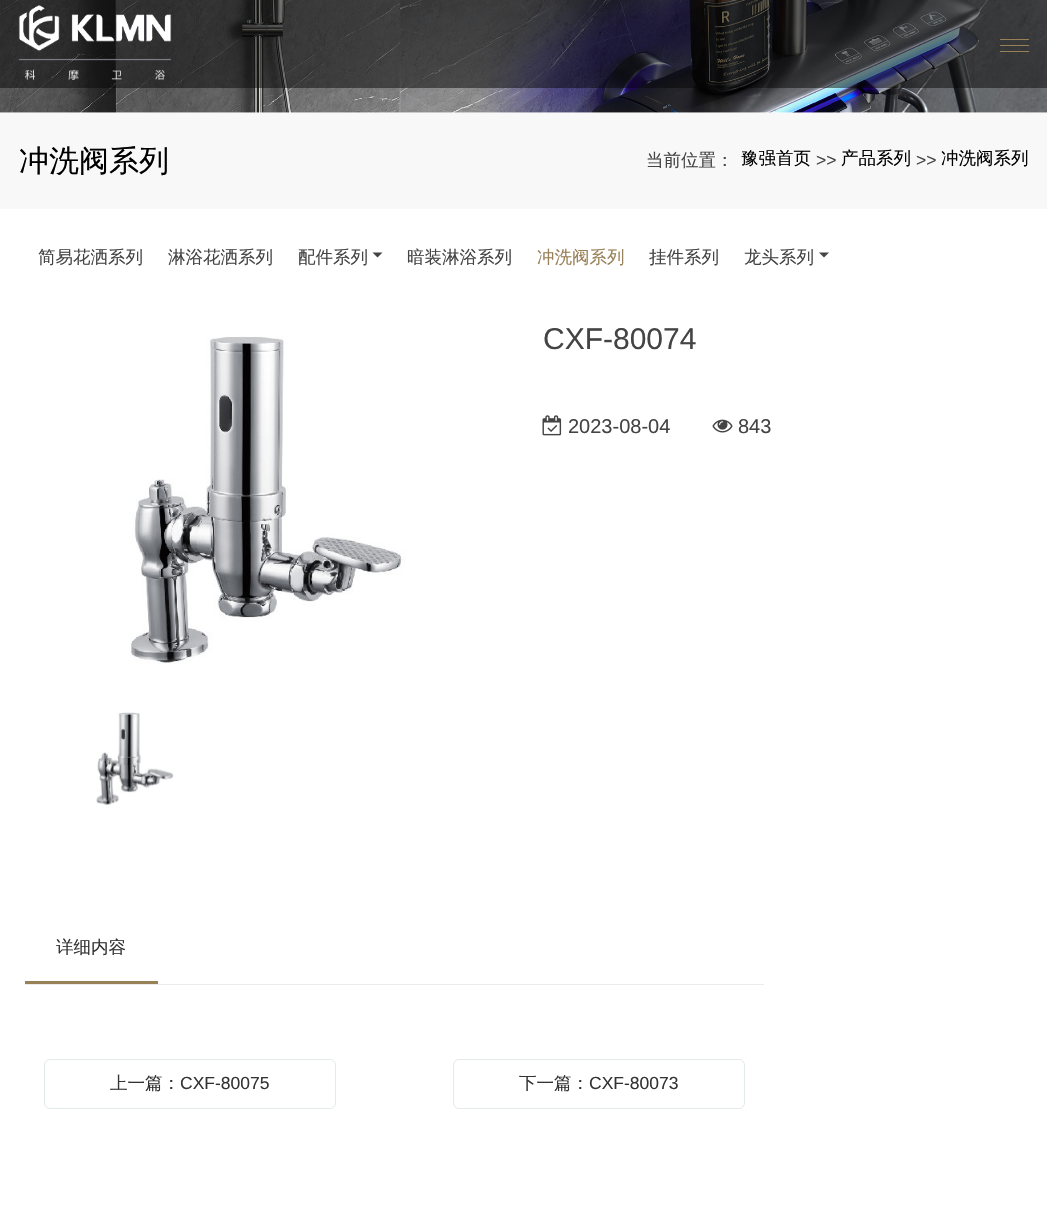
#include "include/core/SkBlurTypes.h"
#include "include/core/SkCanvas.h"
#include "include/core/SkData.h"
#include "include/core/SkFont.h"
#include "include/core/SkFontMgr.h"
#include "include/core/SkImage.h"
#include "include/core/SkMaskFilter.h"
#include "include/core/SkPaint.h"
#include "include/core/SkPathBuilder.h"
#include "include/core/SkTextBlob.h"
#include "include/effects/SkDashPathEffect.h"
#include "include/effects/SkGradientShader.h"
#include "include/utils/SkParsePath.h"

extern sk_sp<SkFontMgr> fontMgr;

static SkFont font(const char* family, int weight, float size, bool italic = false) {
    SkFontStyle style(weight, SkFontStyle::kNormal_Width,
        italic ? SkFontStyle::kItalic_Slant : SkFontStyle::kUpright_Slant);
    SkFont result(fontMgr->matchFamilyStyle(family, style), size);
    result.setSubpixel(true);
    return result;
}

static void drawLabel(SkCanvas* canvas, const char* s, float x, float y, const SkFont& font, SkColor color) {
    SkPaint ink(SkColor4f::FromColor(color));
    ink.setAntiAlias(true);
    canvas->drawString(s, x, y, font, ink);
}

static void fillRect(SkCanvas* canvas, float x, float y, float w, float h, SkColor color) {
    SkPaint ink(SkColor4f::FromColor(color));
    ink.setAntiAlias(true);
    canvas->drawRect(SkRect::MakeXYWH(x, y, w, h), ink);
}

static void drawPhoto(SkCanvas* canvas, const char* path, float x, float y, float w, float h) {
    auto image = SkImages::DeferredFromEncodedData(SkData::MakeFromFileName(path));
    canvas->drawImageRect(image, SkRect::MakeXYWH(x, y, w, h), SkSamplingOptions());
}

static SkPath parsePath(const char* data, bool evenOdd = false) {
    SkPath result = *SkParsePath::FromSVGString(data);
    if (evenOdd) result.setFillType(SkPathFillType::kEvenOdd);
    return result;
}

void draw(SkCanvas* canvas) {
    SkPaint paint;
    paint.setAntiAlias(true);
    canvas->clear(0xFFFFFFFF);
    drawPhoto(canvas, "assets/img1.png", 0, 0, 1047, 113);
    fillRect(canvas, 0, 0, 1047, 88, 0x80060606);
    drawPhoto(canvas, "assets/img2.png", 18, 5, 154, 75);
    fillRect(canvas, 1000, 45, 29, 1, 0xFF988057);
    fillRect(canvas, 1000, 39, 29, 1, 0xFF988057);
    fillRect(canvas, 1000, 51, 29, 1, 0xFF988057);
    fillRect(canvas, 0, 113, 1047, 96, 0xFFF8F8F8);
    SkFont font1 = font("WenQuanYi Zen Hei", 500, 30);
    drawLabel(canvas, "冲洗阀系列", 19, 171, font1, 0xFF000000);
    SkFont font2 = font("WenQuanYi Zen Hei", 500, 17.5f);
    drawLabel(canvas, "当前位置：", 646, 166, font2, 0xFF444444);
    drawLabel(canvas, "豫强首页", 741, 164, font2, 0xFF000000);
    SkFont font3 = font("Liberation Sans", 400, 17.5f);
    drawLabel(canvas, ">>", 816, 166, font3, 0xFF444444);
    drawLabel(canvas, "产品系列", 841, 164, font2, 0xFF000000);
    drawLabel(canvas, ">>", 916, 166, font3, 0xFF444444);
    drawLabel(canvas, "冲洗阀系列", 941, 164, font2, 0xFF000000);
    drawLabel(canvas, "简易花洒系列", 38, 263, font2, 0xFF444444);
    drawLabel(canvas, "淋浴花洒系列", 168, 263, font2, 0xFF444444);
    drawLabel(canvas, "配件系列", 298, 263, font2, 0xFF444444);
    paint.setColor(0xFF444444);
    canvas->drawPath(parsePath("M372.5 252.5H382.5L377.5 257.5Z"), paint);
    drawLabel(canvas, "暗装淋浴系列", 407, 263, font2, 0xFF444444);
    drawLabel(canvas, "冲洗阀系列", 537, 263, font2, 0xFF988057);
    drawLabel(canvas, "挂件系列", 649, 263, font2, 0xFF444444);
    drawLabel(canvas, "龙头系列", 744, 263, font2, 0xFF444444);
    canvas->drawPath(parsePath("M819 252.5H829L824 257.5Z"), paint);
    drawPhoto(canvas, "assets/img3.png", 130, 336, 275, 328);
    drawPhoto(canvas, "assets/img4.png", 96, 712, 78, 93);
    SkFont font4 = font("Liberation Sans", 400, 30);
    drawLabel(canvas, "CXF-80074", 543, 349, font4, 0xFF444444);
    drawPhoto(canvas, "assets/img5.png", 542, 415, 20, 21);
    SkFont font5 = font("Liberation Sans", 400, 20);
    drawLabel(canvas, "2023-08-04", 568, 433, font5, 0xFF444444);
    drawPhoto(canvas, "assets/img6.png", 712, 419, 21, 14);
    drawLabel(canvas, "843", 738, 433, font5, 0xFF444444);
    fillRect(canvas, 25, 984, 739, 1, 0xFFECECEE);
    fillRect(canvas, 25, 981, 133, 3, 0xFF988057);
    drawLabel(canvas, "详细内容", 56, 953, font2, 0xFF333333);
    paint.setStroke(true);
    paint.setStrokeWidth(1);
    paint.setColor(0xFFE4EAEC);
    canvas->drawRoundRect(SkRect::MakeXYWH(44.5f, 1059.5f, 291, 49), 5.5f, 5.5f, paint);
    drawLabel(canvas, "上一篇：", 110, 1089, font2, 0xFF333333);
    drawLabel(canvas, "CXF-80075", 180, 1089, font3, 0xFF333333);
    canvas->drawRoundRect(SkRect::MakeXYWH(453.5f, 1059.5f, 291, 49), 5.5f, 5.5f, paint);
    drawLabel(canvas, "下一篇：", 519, 1089, font2, 0xFF333333);
    drawLabel(canvas, "CXF-80073", 589, 1089, font3, 0xFF333333);
}
